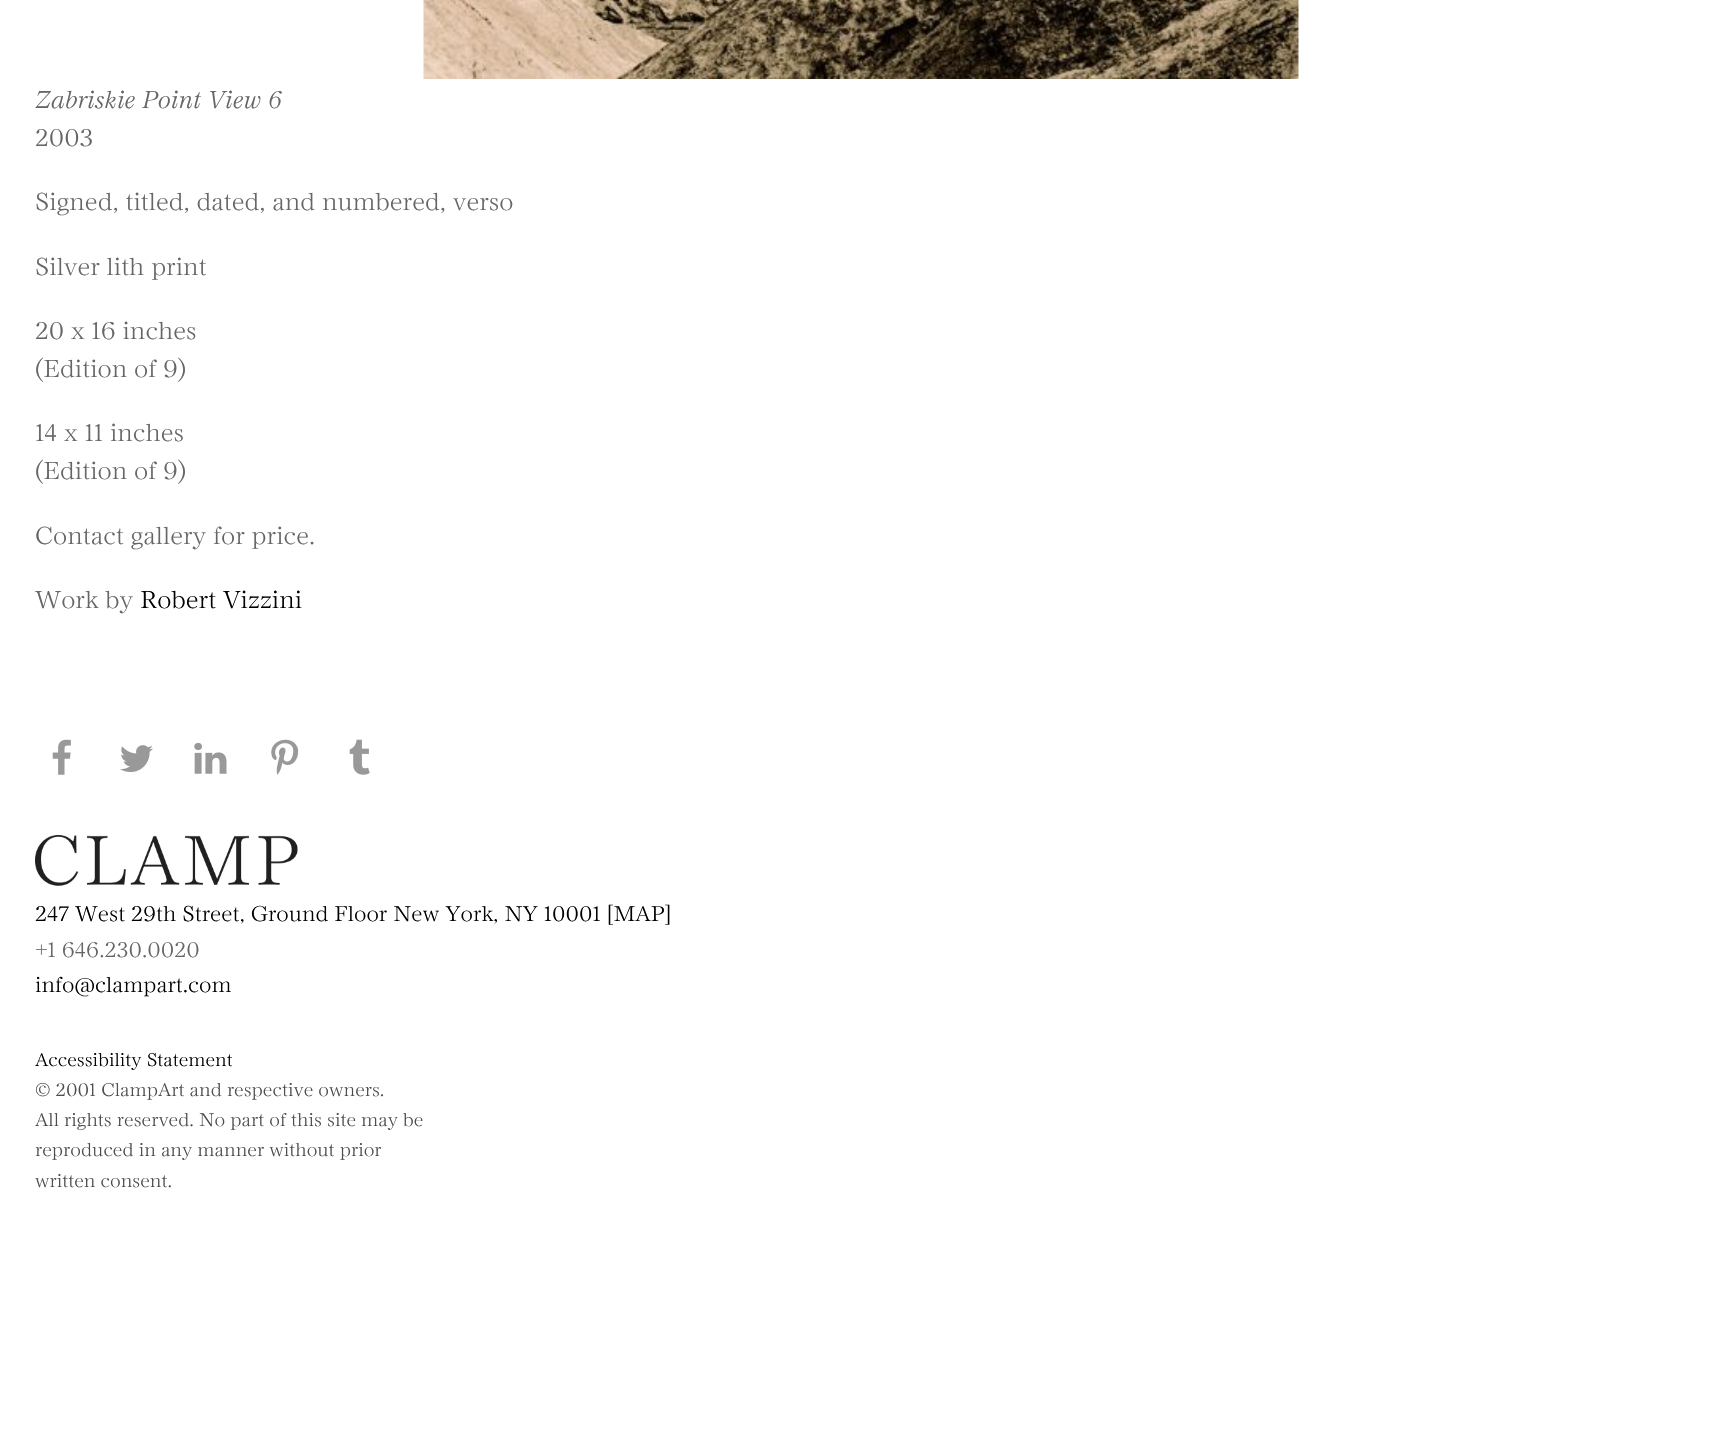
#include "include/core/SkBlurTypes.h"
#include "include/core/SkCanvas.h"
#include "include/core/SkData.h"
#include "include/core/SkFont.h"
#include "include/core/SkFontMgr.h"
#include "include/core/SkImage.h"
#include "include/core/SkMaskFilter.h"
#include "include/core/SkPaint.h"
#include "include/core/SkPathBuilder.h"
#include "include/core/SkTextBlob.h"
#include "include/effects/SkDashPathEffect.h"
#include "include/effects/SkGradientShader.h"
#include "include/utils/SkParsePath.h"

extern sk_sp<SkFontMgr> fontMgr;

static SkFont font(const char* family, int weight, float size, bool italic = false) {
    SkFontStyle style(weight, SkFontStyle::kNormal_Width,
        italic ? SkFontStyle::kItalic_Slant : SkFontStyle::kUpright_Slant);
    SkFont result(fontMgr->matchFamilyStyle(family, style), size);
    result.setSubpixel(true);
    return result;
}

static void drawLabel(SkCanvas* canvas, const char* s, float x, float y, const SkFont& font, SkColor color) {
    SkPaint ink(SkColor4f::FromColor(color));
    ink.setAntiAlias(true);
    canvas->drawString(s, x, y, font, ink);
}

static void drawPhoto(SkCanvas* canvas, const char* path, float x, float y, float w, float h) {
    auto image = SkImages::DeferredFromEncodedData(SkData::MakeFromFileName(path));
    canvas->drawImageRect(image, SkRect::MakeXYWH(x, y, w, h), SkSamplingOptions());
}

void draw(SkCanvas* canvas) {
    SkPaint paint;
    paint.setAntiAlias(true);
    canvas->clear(0xFFFFFFFF);
    drawPhoto(canvas, "assets/img1.png", 423, 0, 876, 79);
    SkFont font1 = font("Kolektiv", 300, 26.9f, true);
    drawLabel(canvas, "Zabriskie Point View 6", 35, 108, font1, 0xFF666666);
    SkFont font2 = font("Kolektiv", 300, 26.9f);
    drawLabel(canvas, "2003", 35, 146, font2, 0xFF666666);
    drawLabel(canvas, "Signed, titled, dated, and numbered, verso", 35, 210, font2, 0xFF666666);
    drawLabel(canvas, "Silver lith print", 35, 275, font2, 0xFF666666);
    drawLabel(canvas, "20 x 16 inches", 35, 339, font2, 0xFF666666);
    drawLabel(canvas, "(Edition of 9)", 35, 377, font2, 0xFF666666);
    drawLabel(canvas, "14 x 11 inches", 35, 441, font2, 0xFF666666);
    drawLabel(canvas, "(Edition of 9)", 35, 479, font2, 0xFF666666);
    drawLabel(canvas, "Contact gallery for price.", 35, 544, font2, 0xFF666666);
    drawLabel(canvas, "Work by", 35, 608, font2, 0xFF666666);
    drawLabel(canvas, "Robert Vizzini", 140, 608, font2, 0xFF000000);
    drawPhoto(canvas, "assets/img2.png", 52, 739, 19, 36);
    drawPhoto(canvas, "assets/img3.png", 120, 745, 33, 27);
    drawPhoto(canvas, "assets/img4.png", 194, 742, 33, 32);
    drawPhoto(canvas, "assets/img5.png", 271, 739, 28, 36);
    drawPhoto(canvas, "assets/img6.png", 349, 739, 21, 36);
    drawPhoto(canvas, "assets/img7.png", 35, 835, 263, 51);
    SkFont font3 = font("Kolektiv", 300, 23.5f);
    drawLabel(canvas, "247 West 29th Street, Ground Floor New York, NY 10001 [MAP]", 35, 921, font3, 0xFF000000);
    drawLabel(canvas, "+1 646.230.0020", 35, 957, font3, 0xFF666666);
    drawLabel(canvas, "info@clampart.com", 35, 992, font3, 0xFF000000);
    SkFont font4 = font("Kolektiv", 300, 20.2f);
    drawLabel(canvas, "Accessibility Statement", 35, 1066, font4, 0xFF000000);
    drawLabel(canvas, "© 2001 ClampArt and respective owners.", 35, 1096, font4, 0xFF4C4C4C);
    drawLabel(canvas, "All rights reserved. No part of this site may be", 35, 1126, font4, 0xFF4C4C4C);
    drawLabel(canvas, "reproduced in any manner without prior", 35, 1156, font4, 0xFF4C4C4C);
    drawLabel(canvas, "written consent.", 35, 1187, font4, 0xFF4C4C4C);
}
